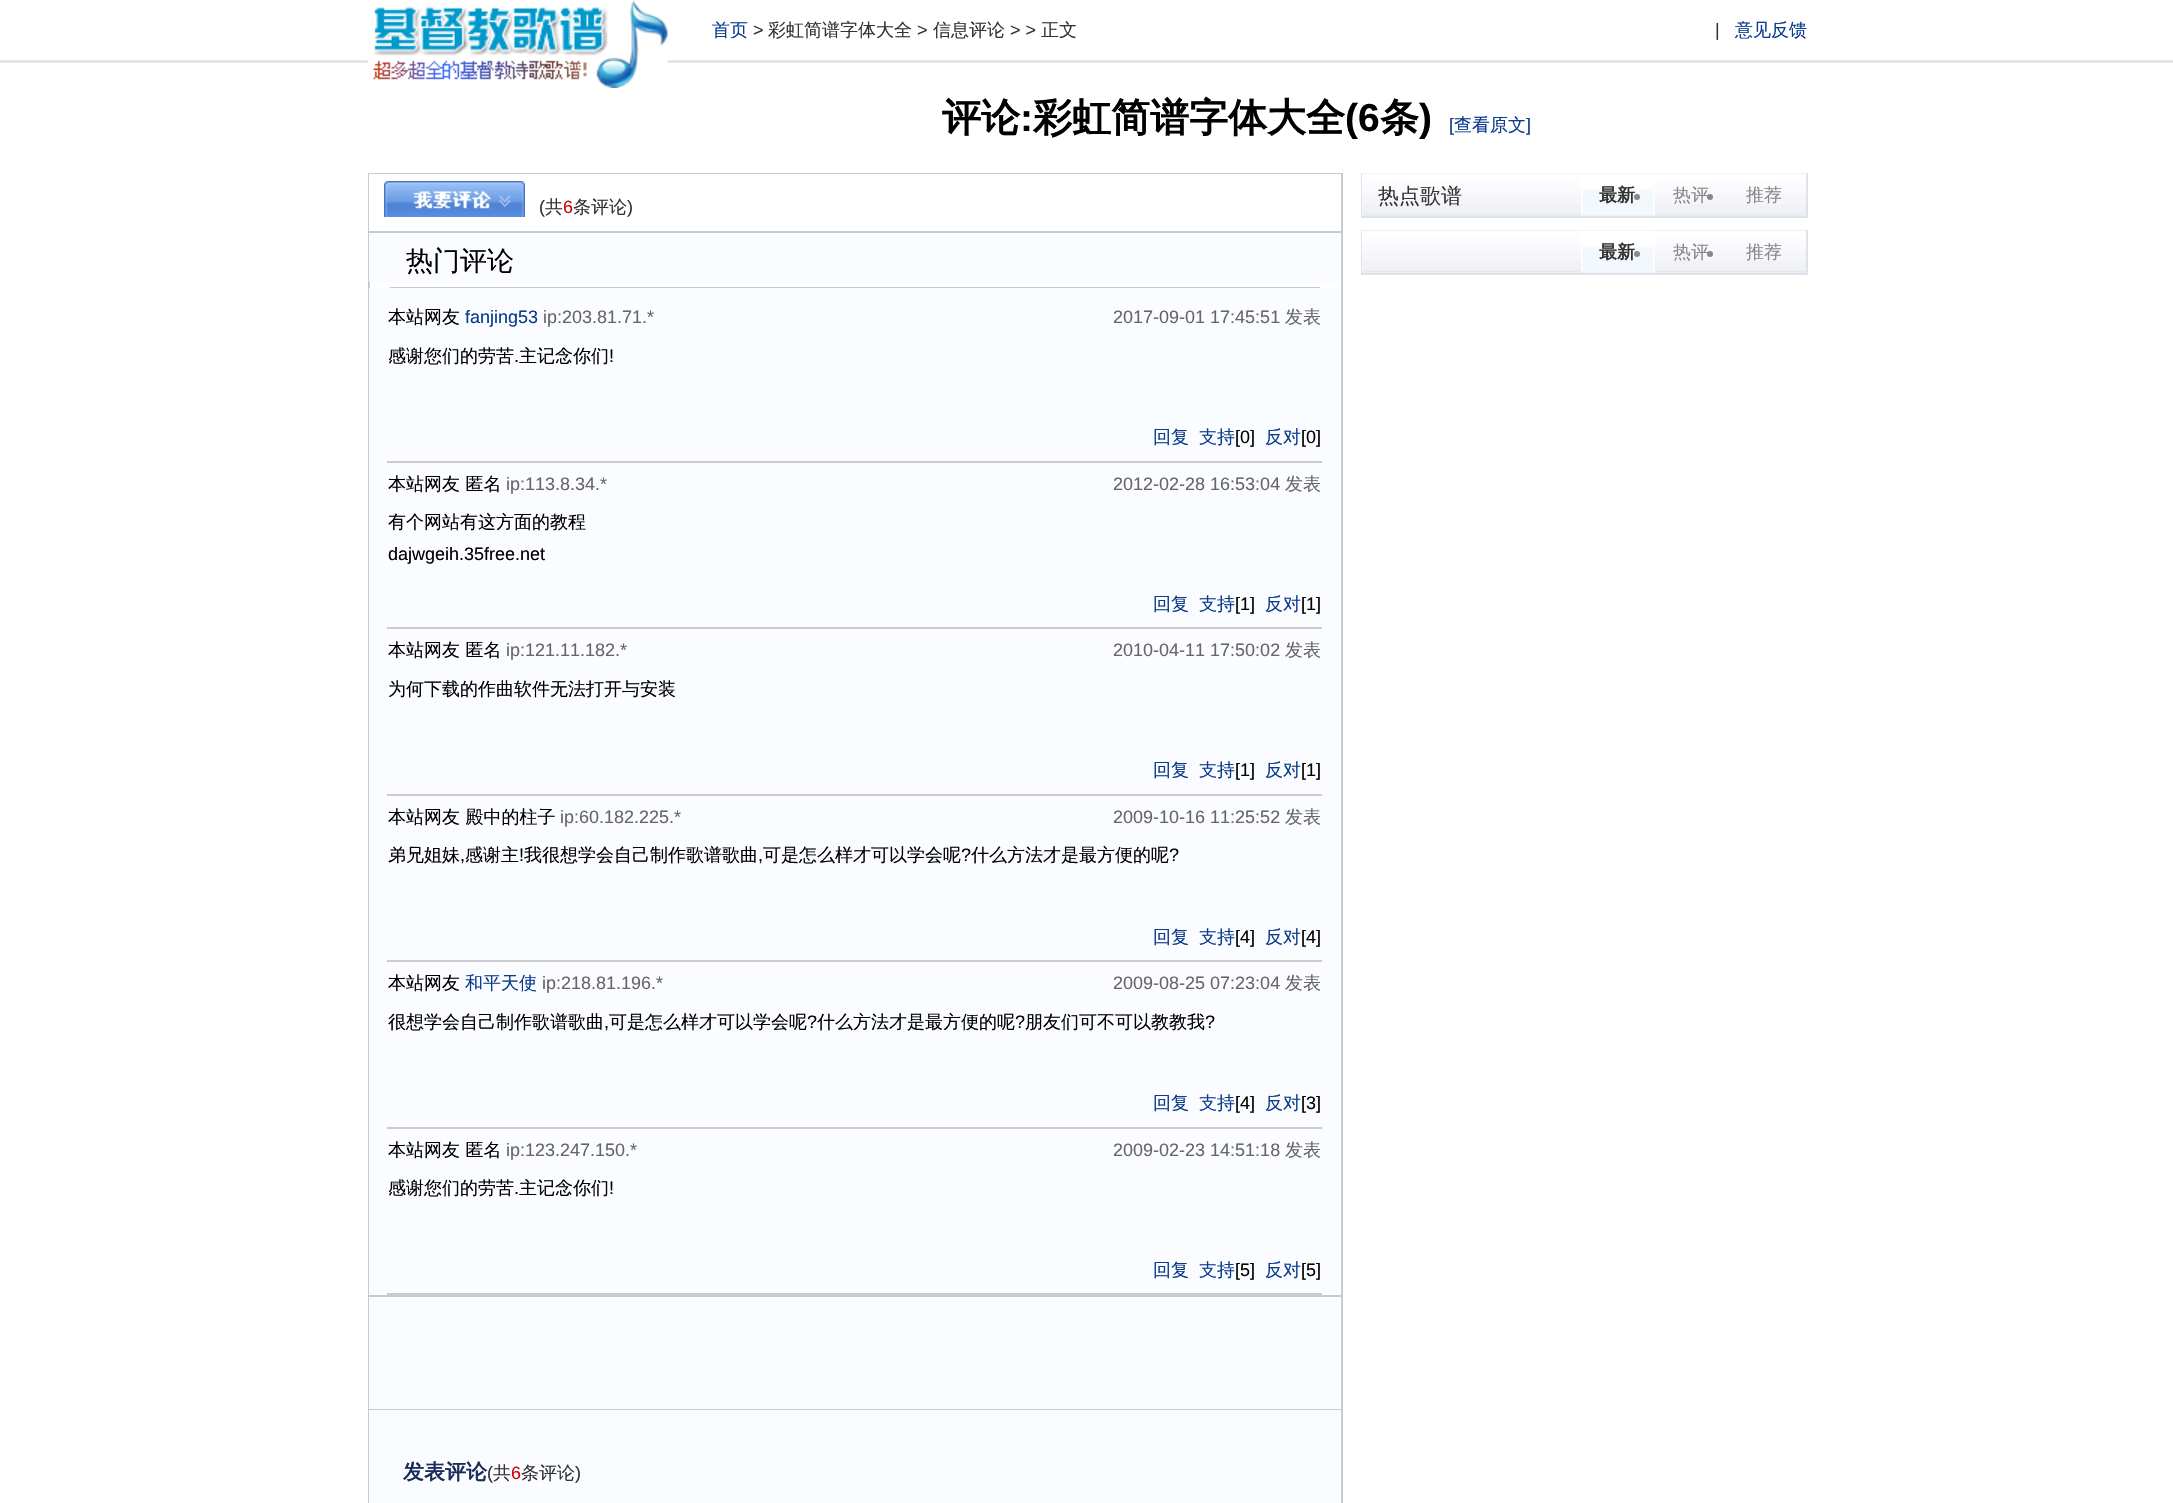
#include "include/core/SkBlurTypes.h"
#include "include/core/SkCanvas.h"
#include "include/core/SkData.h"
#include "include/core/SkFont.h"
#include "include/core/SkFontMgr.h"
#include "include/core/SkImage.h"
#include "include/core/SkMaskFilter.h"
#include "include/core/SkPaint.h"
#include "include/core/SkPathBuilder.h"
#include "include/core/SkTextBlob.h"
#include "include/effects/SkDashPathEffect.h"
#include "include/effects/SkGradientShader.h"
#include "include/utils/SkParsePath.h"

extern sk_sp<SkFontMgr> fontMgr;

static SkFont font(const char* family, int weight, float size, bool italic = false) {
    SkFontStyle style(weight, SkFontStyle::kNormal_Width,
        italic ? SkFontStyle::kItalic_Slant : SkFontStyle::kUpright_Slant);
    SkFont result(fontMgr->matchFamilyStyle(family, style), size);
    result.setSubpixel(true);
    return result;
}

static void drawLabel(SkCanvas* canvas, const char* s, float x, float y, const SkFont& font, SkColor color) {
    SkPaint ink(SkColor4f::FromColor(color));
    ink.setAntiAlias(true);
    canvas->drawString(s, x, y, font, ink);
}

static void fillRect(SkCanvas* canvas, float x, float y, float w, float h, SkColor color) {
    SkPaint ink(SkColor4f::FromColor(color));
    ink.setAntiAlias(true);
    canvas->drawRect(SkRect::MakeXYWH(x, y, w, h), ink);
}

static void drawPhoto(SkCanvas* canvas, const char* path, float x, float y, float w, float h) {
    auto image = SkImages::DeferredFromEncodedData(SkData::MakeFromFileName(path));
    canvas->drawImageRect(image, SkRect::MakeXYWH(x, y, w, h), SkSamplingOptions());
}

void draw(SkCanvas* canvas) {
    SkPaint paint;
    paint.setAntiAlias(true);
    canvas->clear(0xFFFFFFFF);
    fillRect(canvas, 0, 60, 2173, 3, 0xFFE5E6E6);
    drawPhoto(canvas, "assets/img1.png", 367, 0, 301, 88);
    SkFont font1 = font("WenQuanYi Zen Hei", 500, 18);
    drawLabel(canvas, "首页", 712, 36, font1, 0xFF0B3B8C);
    SkFont font2 = font("Liberation Sans", 400, 18);
    drawLabel(canvas, ">", 753, 36, font2, 0xFF333333);
    drawLabel(canvas, "彩虹简谱字体大全", 768, 36, font1, 0xFF333333);
    drawLabel(canvas, ">", 917, 36, font2, 0xFF333333);
    drawLabel(canvas, "信息评论", 933, 36, font1, 0xFF333333);
    drawLabel(canvas, "> >", 1010, 36, font2, 0xFF333333);
    drawLabel(canvas, "正文", 1041, 36, font1, 0xFF333333);
    drawLabel(canvas, "|", 1715, 36, font2, 0xFF333333);
    drawLabel(canvas, "意见反馈", 1735, 36, font1, 0xFF0B3B8C);
    SkFont font3 = font("WenQuanYi Zen Hei", 700, 39);
    drawLabel(canvas, "评论", 942, 131, font3, 0xFF000000);
    SkFont font4 = font("Liberation Sans", 700, 39);
    drawLabel(canvas, ":", 1020, 131, font4, 0xFF000000);
    drawLabel(canvas, "彩虹简谱字体大全", 1033, 131, font3, 0xFF000000);
    drawLabel(canvas, "(6", 1345, 131, font4, 0xFF000000);
    drawLabel(canvas, "条", 1380, 131, font3, 0xFF000000);
    drawLabel(canvas, ")", 1419, 131, font4, 0xFF000000);
    drawLabel(canvas, "[", 1449, 131, font2, 0xFF0B3B8C);
    drawLabel(canvas, "查看原文", 1454, 131, font1, 0xFF0B3B8C);
    drawLabel(canvas, "]", 1526, 131, font2, 0xFF0B3B8C);
    paint.setStroke(true);
    paint.setStrokeWidth(2);
    paint.setColor(0xFFC3CBD5);
    canvas->drawRect(SkRect::MakeXYWH(369, 174, 973, 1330), paint);
    fillRect(canvas, 369, 174, 972, 57, 0xFFFFFFFF);
    drawPhoto(canvas, "assets/img2.png", 384, 181, 141, 36);
    drawLabel(canvas, "(", 539, 213, font2, 0xFF333333);
    drawLabel(canvas, "共", 545, 213, font1, 0xFF333333);
    drawLabel(canvas, "6", 563, 213, font2, 0xFFCC0000);
    drawLabel(canvas, "条评论", 573, 213, font1, 0xFF333333);
    drawLabel(canvas, ")", 627, 213, font2, 0xFF333333);
    fillRect(canvas, 369, 231, 972, 2, 0xFFC3CBD5);
    fillRect(canvas, 369, 233, 972, 49, 0xFFFAFCFF);
    fillRect(canvas, 390, 287, 930, 1, 0xFFC3CBD5);
    SkFont font5 = font("WenQuanYi Zen Hei", 500, 27);
    drawLabel(canvas, "热门评论", 406, 270, font5, 0xFF000000);
    fillRect(canvas, 369, 288, 972, 1007, 0xFFFAFCFF);
    fillRect(canvas, 369, 1295, 972, 2, 0xFFC3CBD5);
    fillRect(canvas, 387, 461, 935, 2, 0xFFCCCCCC);
    drawLabel(canvas, "本站网友", 388, 323, font1, 0xFF000000);
    drawLabel(canvas, "fanjing53", 465, 323, font2, 0xFF0B3B8C);
    drawLabel(canvas, "ip:203.81.71.*", 543, 323, font2, 0xFF666666);
    drawLabel(canvas, "2017-09-01 17:45:51", 1113, 323, font2, 0xFF666666);
    drawLabel(canvas, "发表", 1285, 323, font1, 0xFF666666);
    drawLabel(canvas, "感谢您们的劳苦", 388, 362, font1, 0xFF000000);
    drawLabel(canvas, ".", 514, 362, font2, 0xFF000000);
    drawLabel(canvas, "主记念你们", 519, 362, font1, 0xFF000000);
    drawLabel(canvas, "!", 609, 362, font2, 0xFF000000);
    drawLabel(canvas, "回复", 1153, 443, font1, 0xFF0B3B8C);
    drawLabel(canvas, "支持", 1199, 443, font1, 0xFF0B3B8C);
    drawLabel(canvas, "[0]", 1235, 443, font2, 0xFF000000);
    drawLabel(canvas, "反对", 1265, 443, font1, 0xFF0B3B8C);
    drawLabel(canvas, "[0]", 1301, 443, font2, 0xFF000000);
    fillRect(canvas, 387, 627, 935, 2, 0xFFCCCCCC);
    drawLabel(canvas, "本站网友 匿名", 388, 490, font1, 0xFF000000);
    drawLabel(canvas, "ip:113.8.34.*", 506, 490, font2, 0xFF666666);
    drawLabel(canvas, "2012-02-28 16:53:04", 1113, 490, font2, 0xFF666666);
    drawLabel(canvas, "发表", 1285, 490, font1, 0xFF666666);
    drawLabel(canvas, "有个网站有这方面的教程", 388, 528, font1, 0xFF000000);
    drawLabel(canvas, "dajwgeih.35free.net", 388, 560, font2, 0xFF000000);
    drawLabel(canvas, "回复", 1153, 610, font1, 0xFF0B3B8C);
    drawLabel(canvas, "支持", 1199, 610, font1, 0xFF0B3B8C);
    drawLabel(canvas, "[1]", 1235, 610, font2, 0xFF000000);
    drawLabel(canvas, "反对", 1265, 610, font1, 0xFF0B3B8C);
    drawLabel(canvas, "[1]", 1301, 610, font2, 0xFF000000);
    fillRect(canvas, 387, 794, 935, 2, 0xFFCCCCCC);
    drawLabel(canvas, "本站网友 匿名", 388, 656, font1, 0xFF000000);
    drawLabel(canvas, "ip:121.11.182.*", 506, 656, font2, 0xFF666666);
    drawLabel(canvas, "2010-04-11 17:50:02", 1113, 656, font2, 0xFF666666);
    drawLabel(canvas, "发表", 1285, 656, font1, 0xFF666666);
    drawLabel(canvas, "为何下载的作曲软件无法打开与安装", 388, 695, font1, 0xFF000000);
    drawLabel(canvas, "回复", 1153, 776, font1, 0xFF0B3B8C);
    drawLabel(canvas, "支持", 1199, 776, font1, 0xFF0B3B8C);
    drawLabel(canvas, "[1]", 1235, 776, font2, 0xFF000000);
    drawLabel(canvas, "反对", 1265, 776, font1, 0xFF0B3B8C);
    drawLabel(canvas, "[1]", 1301, 776, font2, 0xFF000000);
    fillRect(canvas, 387, 960, 935, 2, 0xFFCCCCCC);
    drawLabel(canvas, "本站网友 殿中的柱子", 388, 823, font1, 0xFF000000);
    drawLabel(canvas, "ip:60.182.225.*", 560, 823, font2, 0xFF666666);
    drawLabel(canvas, "2009-10-16 11:25:52", 1113, 823, font2, 0xFF666666);
    drawLabel(canvas, "发表", 1285, 823, font1, 0xFF666666);
    drawLabel(canvas, "弟兄姐妹", 388, 861, font1, 0xFF000000);
    drawLabel(canvas, "感谢主", 465, 861, font1, 0xFF000000);
    drawLabel(canvas, "!", 519, 861, font2, 0xFF000000);
    drawLabel(canvas, "我很想学会自己制作歌谱歌曲", 524, 861, font1, 0xFF000000);
    drawLabel(canvas, "可是怎么样才可以学会呢", 763, 861, font1, 0xFF000000);
    drawLabel(canvas, "?", 961, 861, font2, 0xFF000000);
    drawLabel(canvas, "什么方法才是最方便的呢", 971, 861, font1, 0xFF000000);
    drawLabel(canvas, "?", 1169, 861, font2, 0xFF000000);
    drawLabel(canvas, ",", 460, 861, font2, 0xFF000000);
    drawLabel(canvas, ",", 758, 861, font2, 0xFF000000);
    drawLabel(canvas, "回复", 1153, 943, font1, 0xFF0B3B8C);
    drawLabel(canvas, "支持", 1199, 943, font1, 0xFF0B3B8C);
    drawLabel(canvas, "[4]", 1235, 943, font2, 0xFF000000);
    drawLabel(canvas, "反对", 1265, 943, font1, 0xFF0B3B8C);
    drawLabel(canvas, "[4]", 1301, 943, font2, 0xFF000000);
    fillRect(canvas, 387, 1127, 935, 2, 0xFFCCCCCC);
    drawLabel(canvas, "本站网友", 388, 989, font1, 0xFF000000);
    drawLabel(canvas, "和平天使", 465, 989, font1, 0xFF0B3B8C);
    drawLabel(canvas, "ip:218.81.196.*", 542, 989, font2, 0xFF666666);
    drawLabel(canvas, "2009-08-25 07:23:04", 1113, 989, font2, 0xFF666666);
    drawLabel(canvas, "发表", 1285, 989, font1, 0xFF666666);
    drawLabel(canvas, "很想学会自己制作歌谱歌曲", 388, 1028, font1, 0xFF000000);
    drawLabel(canvas, "可是怎么样才可以学会呢", 609, 1028, font1, 0xFF000000);
    drawLabel(canvas, "?", 807, 1028, font2, 0xFF000000);
    drawLabel(canvas, "什么方法才是最方便的呢", 817, 1028, font1, 0xFF000000);
    drawLabel(canvas, "?", 1015, 1028, font2, 0xFF000000);
    drawLabel(canvas, "朋友们可不可以教教我", 1025, 1028, font1, 0xFF000000);
    drawLabel(canvas, "?", 1205, 1028, font2, 0xFF000000);
    drawLabel(canvas, ",", 604, 1028, font2, 0xFF000000);
    drawLabel(canvas, "回复", 1153, 1109, font1, 0xFF0B3B8C);
    drawLabel(canvas, "支持", 1199, 1109, font1, 0xFF0B3B8C);
    drawLabel(canvas, "[4]", 1235, 1109, font2, 0xFF000000);
    drawLabel(canvas, "反对", 1265, 1109, font1, 0xFF0B3B8C);
    drawLabel(canvas, "[3]", 1301, 1109, font2, 0xFF000000);
    fillRect(canvas, 387, 1293, 935, 2, 0xFFCCCCCC);
    drawLabel(canvas, "本站网友 匿名", 388, 1156, font1, 0xFF000000);
    drawLabel(canvas, "ip:123.247.150.*", 506, 1156, font2, 0xFF666666);
    drawLabel(canvas, "2009-02-23 14:51:18", 1113, 1156, font2, 0xFF666666);
    drawLabel(canvas, "发表", 1285, 1156, font1, 0xFF666666);
    drawLabel(canvas, "感谢您们的劳苦", 388, 1194, font1, 0xFF000000);
    drawLabel(canvas, ".", 514, 1194, font2, 0xFF000000);
    drawLabel(canvas, "主记念你们", 519, 1194, font1, 0xFF000000);
    drawLabel(canvas, "!", 609, 1194, font2, 0xFF000000);
    drawLabel(canvas, "回复", 1153, 1276, font1, 0xFF0B3B8C);
    drawLabel(canvas, "支持", 1199, 1276, font1, 0xFF0B3B8C);
    drawLabel(canvas, "[5]", 1235, 1276, font2, 0xFF000000);
    drawLabel(canvas, "反对", 1265, 1276, font1, 0xFF0B3B8C);
    drawLabel(canvas, "[5]", 1301, 1276, font2, 0xFF000000);
    fillRect(canvas, 369, 1297, 972, 112, 0xFFFAFCFF);
    fillRect(canvas, 369, 1409, 972, 1, 0xFFC3CBD5);
    fillRect(canvas, 369, 1410, 972, 93, 0xFFFAFCFF);
    SkFont font6 = font("WenQuanYi Zen Hei", 700, 21);
    drawLabel(canvas, "发表评论", 403, 1479, font6, 0xFF1C2C58);
    drawLabel(canvas, "(", 487, 1479, font2, 0xFF333333);
    drawLabel(canvas, "共", 493, 1479, font1, 0xFF333333);
    drawLabel(canvas, "6", 511, 1479, font2, 0xFFCC0000);
    drawLabel(canvas, "条评论", 521, 1479, font1, 0xFF333333);
    drawLabel(canvas, ")", 575, 1479, font2, 0xFF333333);
    fillRect(canvas, 1363, 215, 443, 1, 0xFFF3F8FE);
    paint.setColor(0xFFDDE3EA);
    canvas->drawRect(SkRect::MakeXYWH(1362, 174, 445, 43), paint);
    drawPhoto(canvas, "assets/img3.png", 1362, 173, 444, 43);
    SkFont font7 = font("WenQuanYi Zen Hei", 500, 21);
    drawLabel(canvas, "热点歌谱", 1378, 203, font7, 0xFF333333);
    drawPhoto(canvas, "assets/img4.png", 1581, 173, 74, 43);
    SkFont font8 = font("WenQuanYi Zen Hei", 700, 18);
    drawLabel(canvas, "最新", 1599, 201, font8, 0xFF333333);
    paint.setStroke(false);
    paint.setColor(0xFF888888);
    canvas->drawCircle(1637, 197, 3, paint);
    drawLabel(canvas, "热评", 1673, 201, font1, 0xFF888888);
    canvas->drawCircle(1710, 197, 3, paint);
    drawLabel(canvas, "推荐", 1746, 201, font1, 0xFF888888);
    fillRect(canvas, 1363, 272, 443, 1, 0xFFF3F8FE);
    paint.setStroke(true);
    paint.setColor(0xFFDDE3EA);
    canvas->drawRect(SkRect::MakeXYWH(1362, 231, 445, 43), paint);
    drawPhoto(canvas, "assets/img3.png", 1362, 230, 444, 43);
    drawPhoto(canvas, "assets/img4.png", 1581, 230, 74, 43);
    drawLabel(canvas, "最新", 1599, 258, font8, 0xFF333333);
    paint.setStroke(false);
    paint.setColor(0xFF888888);
    canvas->drawCircle(1637, 254, 3, paint);
    drawLabel(canvas, "热评", 1673, 258, font1, 0xFF888888);
    canvas->drawCircle(1710, 254, 3, paint);
    drawLabel(canvas, "推荐", 1746, 258, font1, 0xFF888888);
}
